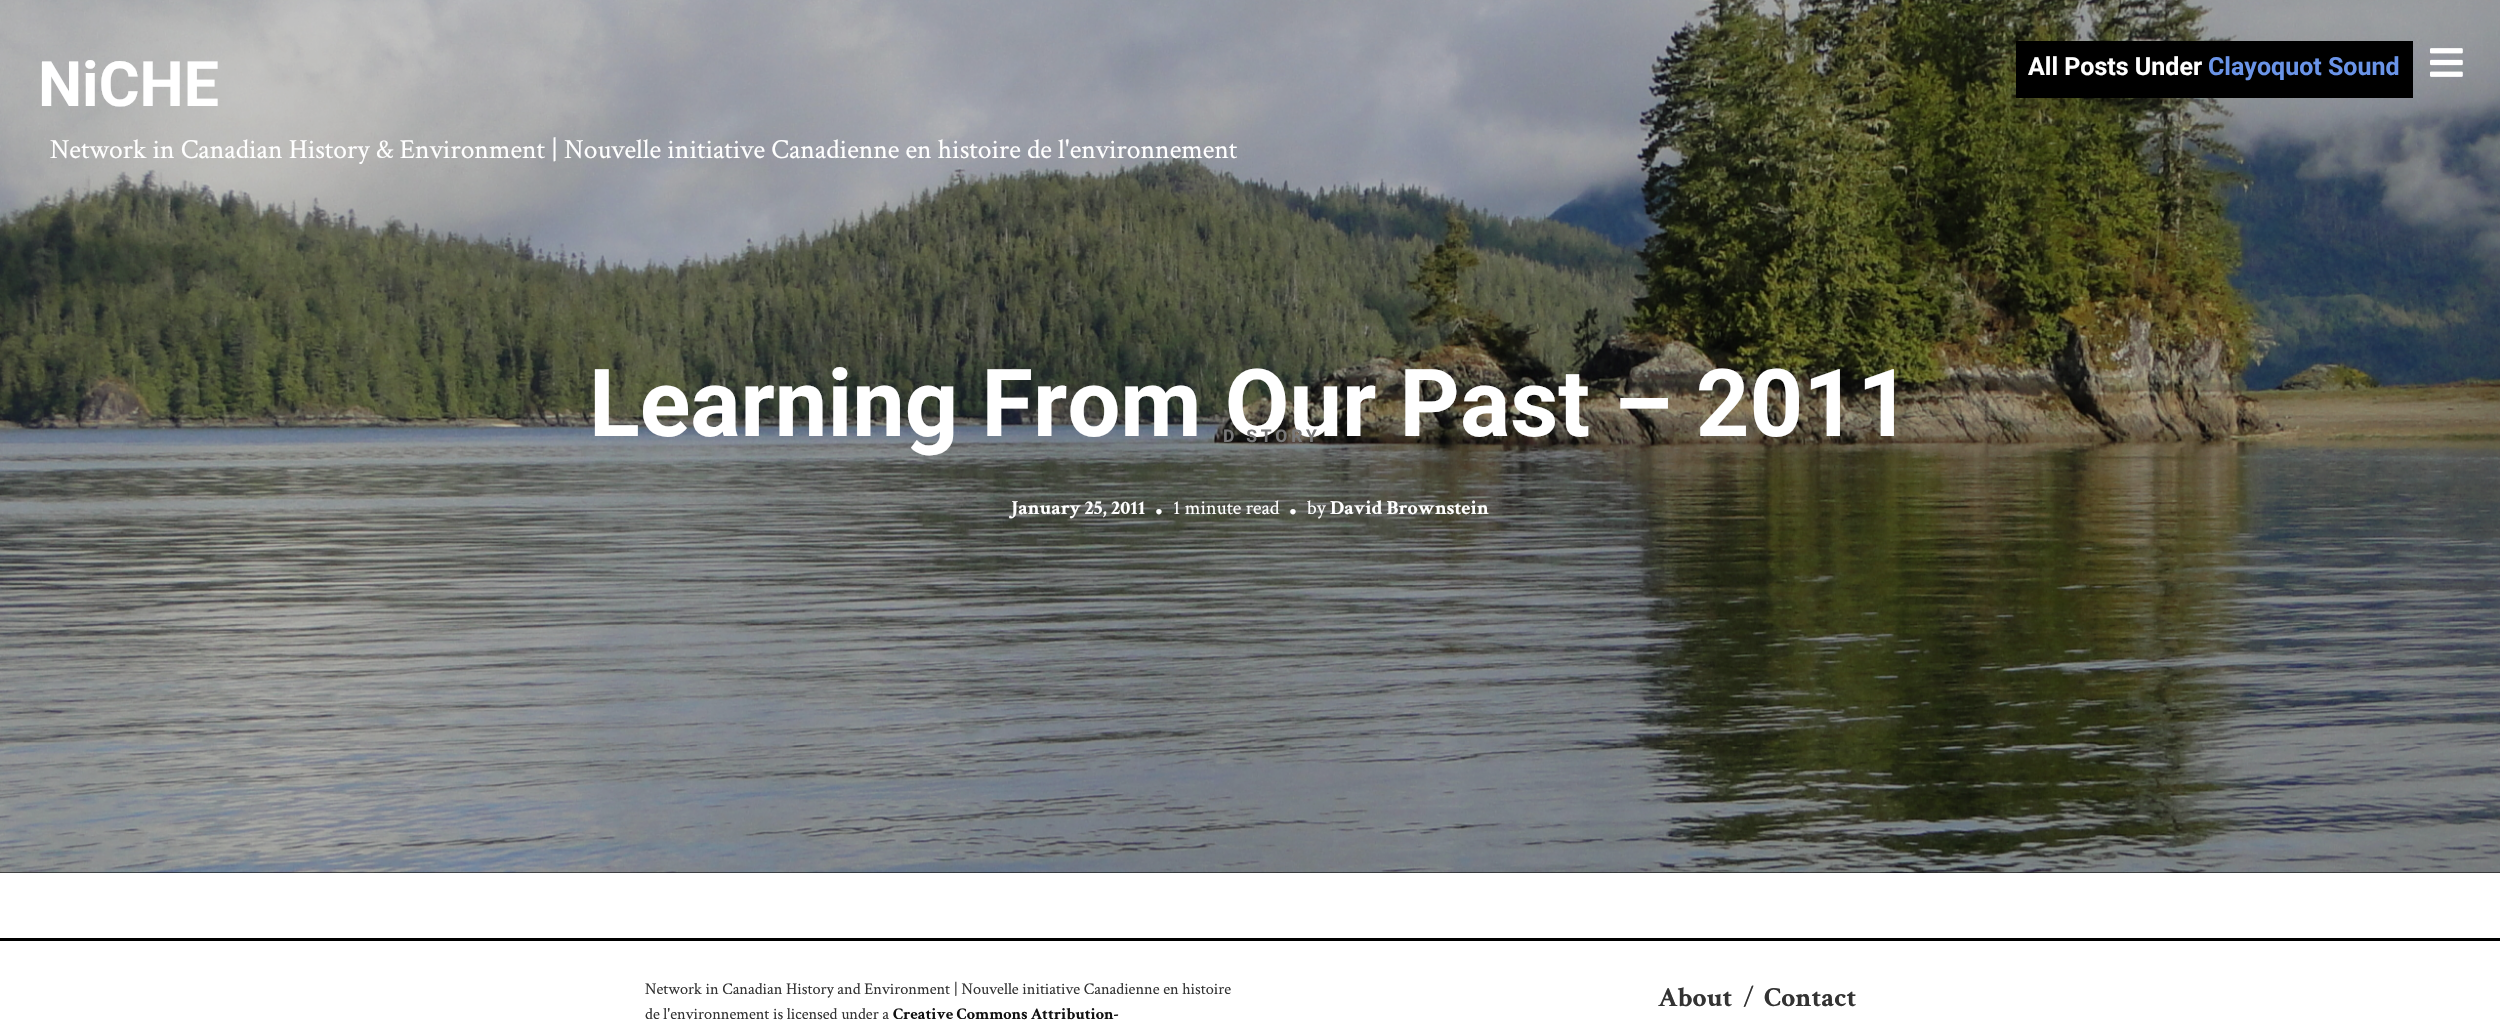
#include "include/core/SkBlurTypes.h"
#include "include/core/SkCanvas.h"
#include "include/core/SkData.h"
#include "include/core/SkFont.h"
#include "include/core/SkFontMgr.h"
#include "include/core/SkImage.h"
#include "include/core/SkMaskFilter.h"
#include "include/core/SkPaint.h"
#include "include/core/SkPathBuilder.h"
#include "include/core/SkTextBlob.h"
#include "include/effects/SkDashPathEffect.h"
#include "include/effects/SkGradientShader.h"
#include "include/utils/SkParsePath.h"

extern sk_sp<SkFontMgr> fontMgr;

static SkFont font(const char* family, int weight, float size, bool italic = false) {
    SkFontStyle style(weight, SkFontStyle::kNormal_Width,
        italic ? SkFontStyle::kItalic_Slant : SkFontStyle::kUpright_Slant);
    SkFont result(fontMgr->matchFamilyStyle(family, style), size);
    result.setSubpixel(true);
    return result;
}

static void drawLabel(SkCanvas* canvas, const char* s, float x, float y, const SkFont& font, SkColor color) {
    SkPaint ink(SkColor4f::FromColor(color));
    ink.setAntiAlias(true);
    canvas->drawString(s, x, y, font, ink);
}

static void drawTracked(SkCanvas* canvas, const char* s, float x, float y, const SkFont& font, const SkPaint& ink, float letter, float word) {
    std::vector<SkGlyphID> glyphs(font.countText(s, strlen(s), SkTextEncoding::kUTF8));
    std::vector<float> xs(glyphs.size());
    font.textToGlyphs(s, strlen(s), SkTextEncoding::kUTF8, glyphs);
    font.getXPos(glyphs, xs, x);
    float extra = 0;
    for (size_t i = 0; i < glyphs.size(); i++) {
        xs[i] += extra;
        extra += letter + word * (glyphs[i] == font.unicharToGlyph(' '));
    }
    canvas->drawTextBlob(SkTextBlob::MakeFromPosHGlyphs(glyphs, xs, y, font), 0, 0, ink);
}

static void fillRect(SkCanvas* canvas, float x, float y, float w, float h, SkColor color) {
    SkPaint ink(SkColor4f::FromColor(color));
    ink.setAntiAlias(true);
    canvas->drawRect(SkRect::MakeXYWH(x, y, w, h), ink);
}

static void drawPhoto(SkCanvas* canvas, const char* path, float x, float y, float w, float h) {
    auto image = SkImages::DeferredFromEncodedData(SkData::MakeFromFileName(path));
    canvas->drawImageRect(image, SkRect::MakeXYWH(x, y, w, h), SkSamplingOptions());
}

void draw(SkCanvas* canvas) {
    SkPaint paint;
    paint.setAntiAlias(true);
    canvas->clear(0xFFFFFFFF);
    fillRect(canvas, 0, 0, 2500, 873, 0xFF000000);
    drawPhoto(canvas, "assets/img2.png", 0, 0, 2500, 873);
    SkFont font1 = font("Roboto", 700, 62.5f);
    drawLabel(canvas, "NiCHE", 38, 106, font1, 0xFFFFFFFF);
    SkFont font2 = font("Crimson Text", 400, 27.5f);
    drawLabel(canvas, "Network in Canadian History & Environment | Nouvelle initiative Canadienne en histoire de l'environnement", 50, 158, font2, 0xFFFFFFFF);
    fillRect(canvas, 2016, 41, 397, 57, 0xFF000000);
    SkFont font3 = font("Roboto", 700, 25);
    drawLabel(canvas, "All Posts Under", 2028, 75, font3, 0xFFFFFFFF);
    drawLabel(canvas, "Clayoquot Sound", 2208, 75, font3, 0xFF6A94E8);
    drawPhoto(canvas, "assets/img1.png", 2430, 48, 33, 29);
    SkFont font4 = font("Roboto", 700, 93.75f);
    drawLabel(canvas, "Learning From Our Past – 2011", 589, 436, font4, 0xFFFFFFFF);
    SkFont font5 = font("Roboto", 700, 17.5f);
    paint.setColor(0xFF787879);
    drawTracked(canvas, "D STORY", 1223, 442, font5, paint, 3.75f, 0);
    SkFont font6 = font("Crimson Text", 700, 20);
    drawLabel(canvas, "January 25, 2011", 1011, 514, font6, 0xFFFFFFFF);
    SkFont font7 = font("Crimson Text", 400, 25);
    drawLabel(canvas, "•", 1154, 518, font7, 0xFFFFFFFF);
    SkFont font8 = font("Crimson Text", 400, 20);
    drawLabel(canvas, "1 minute read", 1173, 514, font8, 0xFFFFFFFF);
    drawLabel(canvas, "•", 1288, 518, font7, 0xFFFFFFFF);
    drawLabel(canvas, "by", 1307, 514, font8, 0xFFFFFFFF);
    drawLabel(canvas, "David Brownstein", 1330, 514, font6, 0xFFFFFFFF);
    fillRect(canvas, 0, 938, 2500, 3, 0xFF000000);
    SkFont font9 = font("Crimson Text", 400, 16.25f);
    drawLabel(canvas, "Network in Canadian History and Environment | Nouvelle initiative Canadienne en histoire", 645, 994, font9, 0xFF333333);
    drawLabel(canvas, "de l'environnement is licensed under a", 645, 1019, font9, 0xFF333333);
    SkFont font10 = font("Crimson Text", 700, 16.25f);
    drawLabel(canvas, "Creative Commons Attribution-", 893, 1019, font10, 0xFF111111);
    SkFont font11 = font("Crimson Text", 700, 27.5f);
    drawLabel(canvas, "About", 1658, 1006, font11, 0xFF333333);
    drawLabel(canvas, "/", 1743, 1006, font2, 0xFF333333);
    drawLabel(canvas, "Contact", 1764, 1006, font11, 0xFF333333);
}
